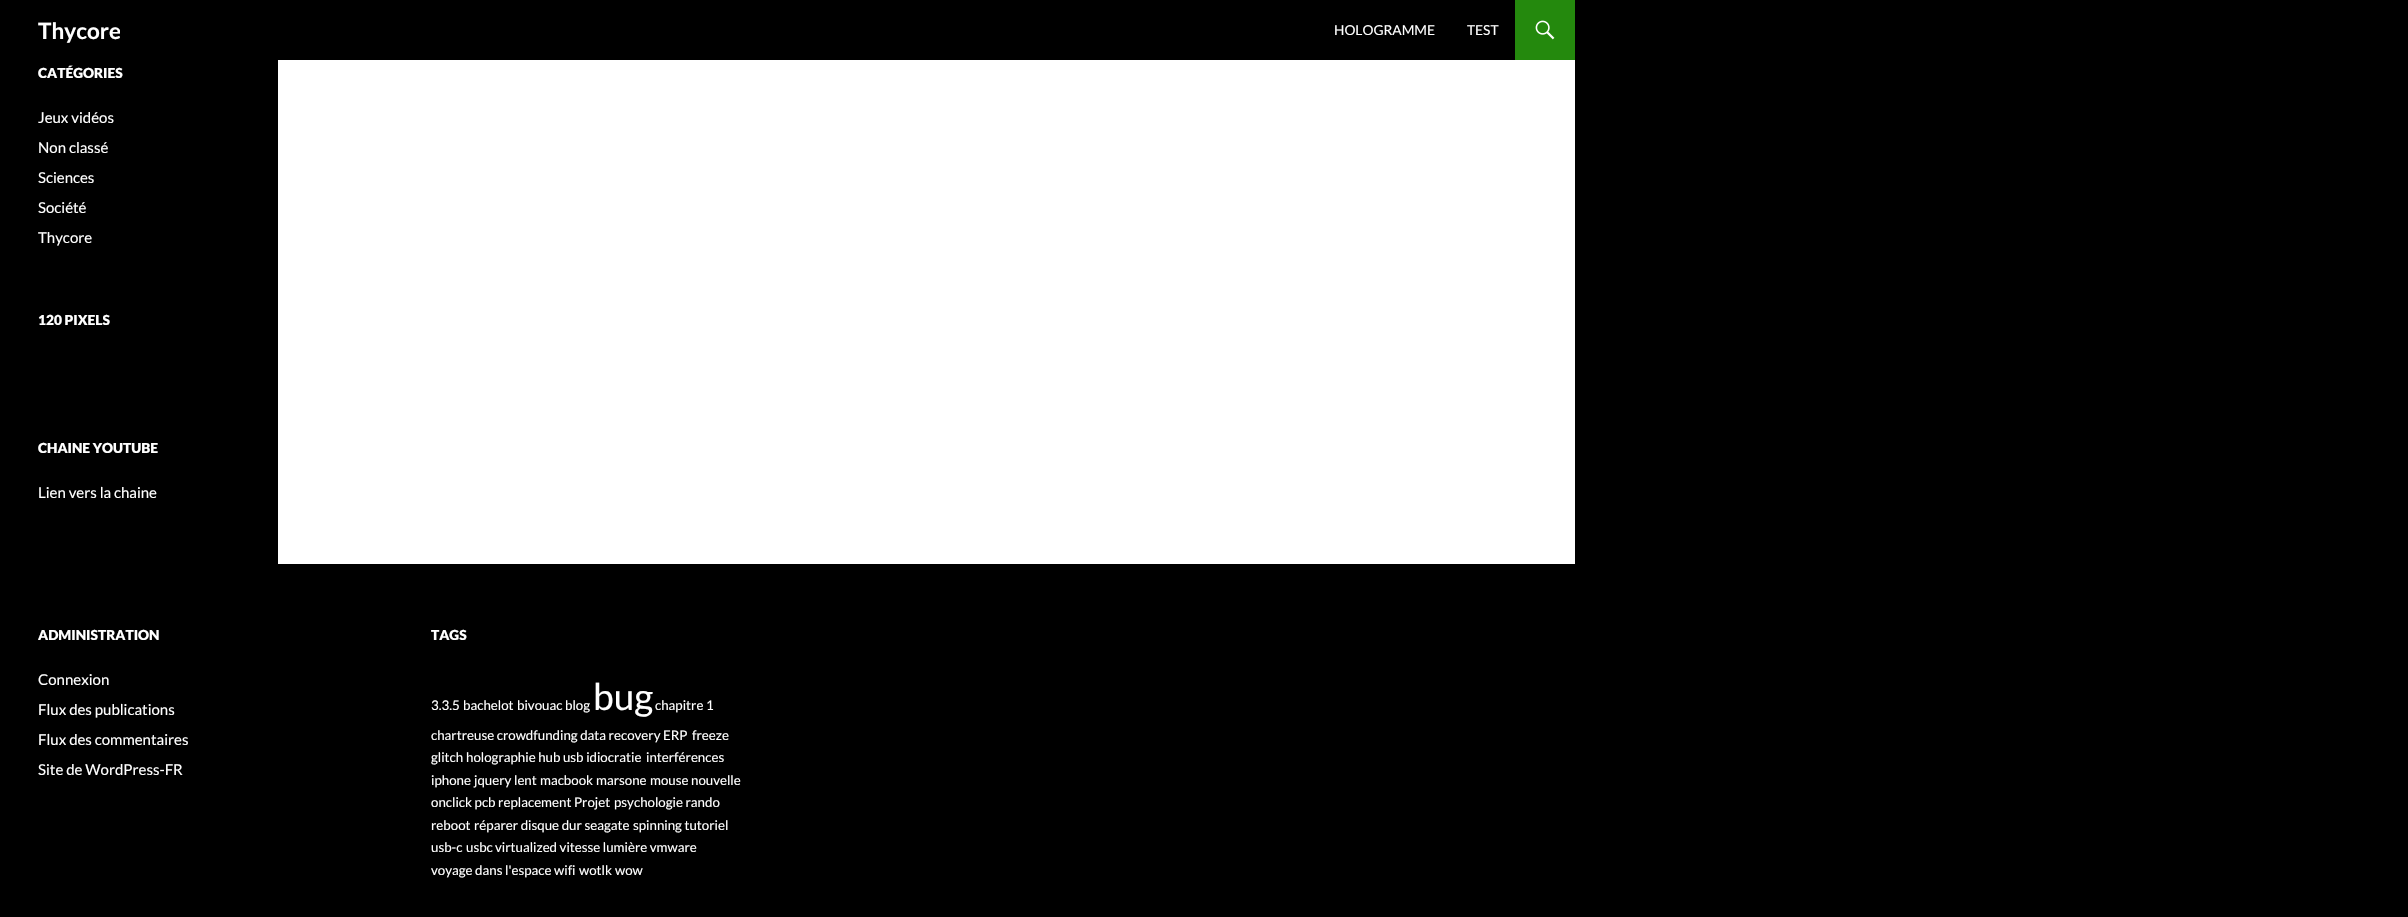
#include "include/core/SkBlurTypes.h"
#include "include/core/SkCanvas.h"
#include "include/core/SkData.h"
#include "include/core/SkFont.h"
#include "include/core/SkFontMgr.h"
#include "include/core/SkImage.h"
#include "include/core/SkMaskFilter.h"
#include "include/core/SkPaint.h"
#include "include/core/SkPathBuilder.h"
#include "include/core/SkTextBlob.h"
#include "include/effects/SkDashPathEffect.h"
#include "include/effects/SkGradientShader.h"
#include "include/utils/SkParsePath.h"

extern sk_sp<SkFontMgr> fontMgr;

static SkFont font(const char* family, int weight, float size, bool italic = false) {
    SkFontStyle style(weight, SkFontStyle::kNormal_Width,
        italic ? SkFontStyle::kItalic_Slant : SkFontStyle::kUpright_Slant);
    SkFont result(fontMgr->matchFamilyStyle(family, style), size);
    result.setSubpixel(true);
    return result;
}

static void drawLabel(SkCanvas* canvas, const char* s, float x, float y, const SkFont& font, SkColor color) {
    SkPaint ink(SkColor4f::FromColor(color));
    ink.setAntiAlias(true);
    canvas->drawString(s, x, y, font, ink);
}

static void fillRect(SkCanvas* canvas, float x, float y, float w, float h, SkColor color) {
    SkPaint ink(SkColor4f::FromColor(color));
    ink.setAntiAlias(true);
    canvas->drawRect(SkRect::MakeXYWH(x, y, w, h), ink);
}

static void drawPhoto(SkCanvas* canvas, const char* path, float x, float y, float w, float h) {
    auto image = SkImages::DeferredFromEncodedData(SkData::MakeFromFileName(path));
    canvas->drawImageRect(image, SkRect::MakeXYWH(x, y, w, h), SkSamplingOptions());
}

void draw(SkCanvas* canvas) {
    SkPaint paint;
    paint.setAntiAlias(true);
    canvas->clear(0xFF000000);
    fillRect(canvas, 278, 60, 1297, 504, 0xFFFFFFFF);
    canvas->save();
    canvas->clipRect(SkRect::MakeXYWH(38, 0, 82, 60));
    SkFont font1 = font("Lato", 700, 22.5f);
    drawLabel(canvas, "Thycore", 38, 39, font1, 0xFFFFFFFF);
    canvas->restore();
    SkFont font2 = font("Lato", 400, 13.75f);
    drawLabel(canvas, "HOLOGRAMME", 1334, 35, font2, 0xFFFFFFFF);
    drawLabel(canvas, "TEST", 1467, 35, font2, 0xFFFFFFFF);
    fillRect(canvas, 1515, 0, 60, 60, 0xFF24890D);
    drawPhoto(canvas, "assets/img1.png", 1535, 20, 20, 20);
    SkFont font3 = font("Lato", 900, 13.75f);
    drawLabel(canvas, "CATÉGORIES", 38, 78, font3, 0xFFFFFFFF);
    SkFont font4 = font("Lato", 400, 15);
    drawLabel(canvas, "Jeux vidéos", 38, 123, font4, 0xFFFFFFFF);
    drawLabel(canvas, "Non classé", 38, 153, font4, 0xFFFFFFFF);
    drawLabel(canvas, "Sciences", 38, 183, font4, 0xFFFFFFFF);
    drawLabel(canvas, "Société", 38, 213, font4, 0xFFFFFFFF);
    drawLabel(canvas, "Thycore", 38, 243, font4, 0xFFFFFFFF);
    drawLabel(canvas, "120 PIXELS", 38, 325, font3, 0xFFFFFFFF);
    drawLabel(canvas, "CHAINE YOUTUBE", 38, 453, font3, 0xFFFFFFFF);
    drawLabel(canvas, "Lien vers la chaine", 38, 498, font4, 0xFFFFFFFF);
    drawLabel(canvas, "ADMINISTRATION", 38, 640, font3, 0xFFFFFFFF);
    drawLabel(canvas, "Connexion", 38, 685, font4, 0xFFFFFFFF);
    drawLabel(canvas, "Flux des publications", 38, 715, font4, 0xFFFFFFFF);
    drawLabel(canvas, "Flux des commentaires", 38, 745, font4, 0xFFFFFFFF);
    drawLabel(canvas, "Site de WordPress-FR", 38, 775, font4, 0xFFFFFFFF);
    drawLabel(canvas, "TAGS", 431, 640, font3, 0xFFFFFFFF);
    SkFont font5 = font("Lato", 400, 13.3f);
    drawLabel(canvas, "3.3.5", 431, 710, font5, 0xFFFFFFFF);
    drawLabel(canvas, "bachelot", 463, 710, font5, 0xFFFFFFFF);
    drawLabel(canvas, "bivouac blog", 517, 710, font5, 0xFFFFFFFF);
    SkFont font6 = font("Lato", 400, 37);
    drawLabel(canvas, "bug", 593, 710, font6, 0xFFFFFFFF);
    drawLabel(canvas, "chapitre 1", 655, 710, font5, 0xFFFFFFFF);
    drawLabel(canvas, "chartreuse crowdfunding data recovery ERP", 431, 740, font5, 0xFFFFFFFF);
    drawLabel(canvas, "freeze", 692, 740, font5, 0xFFFFFFFF);
    drawLabel(canvas, "glitch", 431, 762, font5, 0xFFFFFFFF);
    drawLabel(canvas, "holographie hub usb idiocratie", 466, 762, font5, 0xFFFFFFFF);
    drawLabel(canvas, "interférences", 646, 762, font5, 0xFFFFFFFF);
    drawLabel(canvas, "iphone", 431, 785, font5, 0xFFFFFFFF);
    drawLabel(canvas, "jquery", 474, 785, font5, 0xFFFFFFFF);
    drawLabel(canvas, "lent", 514, 785, font5, 0xFFFFFFFF);
    drawLabel(canvas, "macbook", 540, 785, font5, 0xFFFFFFFF);
    drawLabel(canvas, "marsone", 596, 785, font5, 0xFFFFFFFF);
    drawLabel(canvas, "mouse", 650, 785, font5, 0xFFFFFFFF);
    drawLabel(canvas, "nouvelle", 691, 785, font5, 0xFFFFFFFF);
    drawLabel(canvas, "onclick pcb replacement Projet", 431, 807, font5, 0xFFFFFFFF);
    drawLabel(canvas, "psychologie rando", 614, 807, font5, 0xFFFFFFFF);
    drawLabel(canvas, "reboot", 431, 830, font5, 0xFFFFFFFF);
    drawLabel(canvas, "réparer disque dur seagate", 474, 830, font5, 0xFFFFFFFF);
    drawLabel(canvas, "spinning tutoriel", 633, 830, font5, 0xFFFFFFFF);
    drawLabel(canvas, "usb-c", 431, 852, font5, 0xFFFFFFFF);
    drawLabel(canvas, "usbc", 466, 852, font5, 0xFFFFFFFF);
    drawLabel(canvas, "virtualized vitesse lumière vmware", 495, 852, font5, 0xFFFFFFFF);
    drawLabel(canvas, "voyage dans l'espace wifi", 431, 875, font5, 0xFFFFFFFF);
    drawLabel(canvas, "wotlk", 579, 875, font5, 0xFFFFFFFF);
    drawLabel(canvas, "wow", 615, 875, font5, 0xFFFFFFFF);
}
